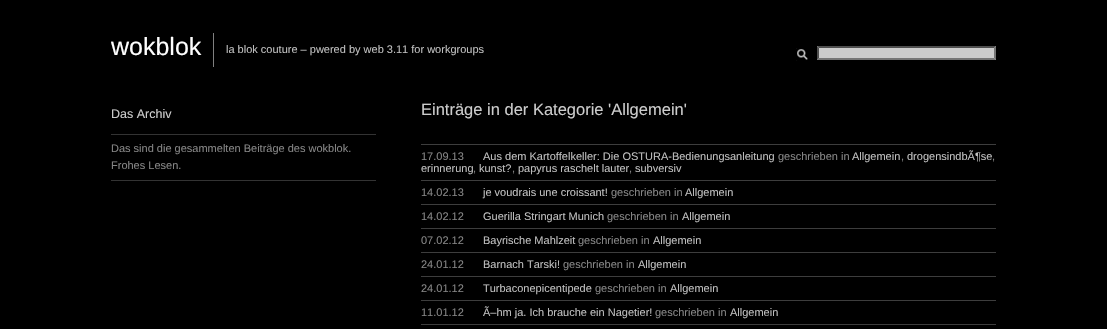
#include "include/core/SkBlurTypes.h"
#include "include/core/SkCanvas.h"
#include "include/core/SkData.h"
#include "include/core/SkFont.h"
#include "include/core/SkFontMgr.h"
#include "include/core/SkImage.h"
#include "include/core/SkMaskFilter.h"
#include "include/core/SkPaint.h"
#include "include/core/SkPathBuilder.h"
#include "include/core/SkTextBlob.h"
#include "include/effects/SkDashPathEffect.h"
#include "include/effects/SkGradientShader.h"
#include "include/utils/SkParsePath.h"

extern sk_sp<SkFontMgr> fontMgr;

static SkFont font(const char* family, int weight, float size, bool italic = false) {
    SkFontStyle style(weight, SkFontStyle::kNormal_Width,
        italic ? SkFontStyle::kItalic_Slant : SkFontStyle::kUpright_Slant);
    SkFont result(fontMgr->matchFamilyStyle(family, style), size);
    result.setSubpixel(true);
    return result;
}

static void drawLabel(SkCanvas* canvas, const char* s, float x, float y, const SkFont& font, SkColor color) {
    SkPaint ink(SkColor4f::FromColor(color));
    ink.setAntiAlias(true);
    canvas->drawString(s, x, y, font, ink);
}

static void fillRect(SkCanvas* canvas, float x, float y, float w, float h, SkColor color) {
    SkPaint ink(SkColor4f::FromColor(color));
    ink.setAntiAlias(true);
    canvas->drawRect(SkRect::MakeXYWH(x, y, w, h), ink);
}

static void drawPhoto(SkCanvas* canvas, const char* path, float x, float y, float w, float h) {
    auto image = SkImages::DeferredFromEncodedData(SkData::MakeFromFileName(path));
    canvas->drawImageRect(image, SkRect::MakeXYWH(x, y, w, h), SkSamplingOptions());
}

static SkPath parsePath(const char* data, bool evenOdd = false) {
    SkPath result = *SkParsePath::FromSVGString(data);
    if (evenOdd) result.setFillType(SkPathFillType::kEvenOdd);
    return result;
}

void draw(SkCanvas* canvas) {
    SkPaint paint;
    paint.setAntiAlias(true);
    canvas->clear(0xFF000000);
    fillRect(canvas, 213, 33, 1, 34, 0xFF808080);
    SkFont font1 = font("Liberation Sans", 400, 25);
    drawLabel(canvas, "wokblok", 111, 55, font1, 0xFFFFFFFF);
    SkFont font2 = font("Liberation Sans", 400, 11);
    drawLabel(canvas, "la blok couture – pwered by web 3.11 for workgroups", 226, 53, font2, 0xFFBFBFBF);
    drawPhoto(canvas, "assets/img1.png", 796, 48, 12, 13);
    fillRect(canvas, 817, 46, 179, 14, 0xFFCCCCCC);
    paint.setColor(0xFF4F4F4F);
    canvas->drawPath(parsePath("M817 46H996L994 48H819Z"), paint);
    paint.setColor(0xFF767676);
    canvas->drawPath(parsePath("M996 46V60L994 58V48Z"), paint);
    canvas->drawPath(parsePath("M996 60H817L819 58H994Z"), paint);
    paint.setColor(0xFF4F4F4F);
    canvas->drawPath(parsePath("M817 60V46L819 48V58Z"), paint);
    SkFont font3 = font("Liberation Sans", 400, 12.5f);
    drawLabel(canvas, "Das Archiv", 111, 118, font3, 0xFFCCCCCC);
    fillRect(canvas, 111, 134, 265, 1, 0xFF333333);
    fillRect(canvas, 111, 180, 265, 1, 0xFF333333);
    drawLabel(canvas, "Das sind die gesammelten Beiträge des wokblok.", 111, 152, font2, 0xFF858585);
    drawLabel(canvas, "Frohes Lesen.", 111, 169, font2, 0xFF858585);
    SkFont font4 = font("Liberation Sans", 400, 16.5f);
    drawLabel(canvas, "Einträge in der Kategorie 'Allgemein'", 421, 115, font4, 0xFFCCCCCC);
    fillRect(canvas, 421, 144, 575, 1, 0xFF3D3D3D);
    fillRect(canvas, 421, 180, 575, 1, 0xFF3D3D3D);
    drawLabel(canvas, "17.09.13", 421, 160, font2, 0xFF858585);
    drawLabel(canvas, "Aus dem Kartoffelkeller: Die OSTURA-Bedienungsanleitung", 483, 160, font2, 0xFFBFBFBF);
    drawLabel(canvas, "geschrieben in", 778, 160, font2, 0xFF858585);
    drawLabel(canvas, "Allgemein", 852, 160, font2, 0xFFBFBFBF);
    drawLabel(canvas, ",", 901, 160, font2, 0xFF858585);
    drawLabel(canvas, "drogensindbÃ¶se", 907, 160, font2, 0xFFBFBFBF);
    drawLabel(canvas, ",", 992, 160, font2, 0xFF858585);
    drawLabel(canvas, "erinnerung", 421, 172, font2, 0xFFBFBFBF);
    drawLabel(canvas, ",", 473, 172, font2, 0xFF858585);
    drawLabel(canvas, "kunst?", 479, 172, font2, 0xFFBFBFBF);
    drawLabel(canvas, ",", 512, 172, font2, 0xFF858585);
    drawLabel(canvas, "papyrus raschelt lauter", 518, 172, font2, 0xFFBFBFBF);
    drawLabel(canvas, ",", 629, 172, font2, 0xFF858585);
    drawLabel(canvas, "subversiv", 635, 172, font2, 0xFFBFBFBF);
    fillRect(canvas, 421, 204, 575, 1, 0xFF3D3D3D);
    drawLabel(canvas, "14.02.13", 421, 196, font2, 0xFF858585);
    drawLabel(canvas, "je voudrais une croissant!", 483, 196, font2, 0xFFBFBFBF);
    drawLabel(canvas, "geschrieben in", 611, 196, font2, 0xFF858585);
    drawLabel(canvas, "Allgemein", 685, 196, font2, 0xFFBFBFBF);
    fillRect(canvas, 421, 228, 575, 1, 0xFF3D3D3D);
    drawLabel(canvas, "14.02.12", 421, 220, font2, 0xFF858585);
    drawLabel(canvas, "Guerilla Stringart Munich", 483, 220, font2, 0xFFBFBFBF);
    drawLabel(canvas, "geschrieben in", 607, 220, font2, 0xFF858585);
    drawLabel(canvas, "Allgemein", 682, 220, font2, 0xFFBFBFBF);
    fillRect(canvas, 421, 252, 575, 1, 0xFF3D3D3D);
    drawLabel(canvas, "07.02.12", 421, 244, font2, 0xFF858585);
    drawLabel(canvas, "Bayrische Mahlzeit", 483, 244, font2, 0xFFBFBFBF);
    drawLabel(canvas, "geschrieben in", 578, 244, font2, 0xFF858585);
    drawLabel(canvas, "Allgemein", 653, 244, font2, 0xFFBFBFBF);
    fillRect(canvas, 421, 276, 575, 1, 0xFF3D3D3D);
    drawLabel(canvas, "24.01.12", 421, 268, font2, 0xFF858585);
    drawLabel(canvas, "Barnach Tarski!", 483, 268, font2, 0xFFBFBFBF);
    drawLabel(canvas, "geschrieben in", 563, 268, font2, 0xFF858585);
    drawLabel(canvas, "Allgemein", 638, 268, font2, 0xFFBFBFBF);
    fillRect(canvas, 421, 300, 575, 1, 0xFF3D3D3D);
    drawLabel(canvas, "24.01.12", 421, 292, font2, 0xFF858585);
    drawLabel(canvas, "Turbaconepicentipede", 483, 292, font2, 0xFFBFBFBF);
    drawLabel(canvas, "geschrieben in", 595, 292, font2, 0xFF858585);
    drawLabel(canvas, "Allgemein", 670, 292, font2, 0xFFBFBFBF);
    fillRect(canvas, 421, 324, 575, 1, 0xFF3D3D3D);
    drawLabel(canvas, "11.01.12", 421, 316, font2, 0xFF858585);
    drawLabel(canvas, "Ã–hm ja. Ich brauche ein Nagetier!", 483, 316, font2, 0xFFBFBFBF);
    drawLabel(canvas, "geschrieben in", 655, 316, font2, 0xFF858585);
    drawLabel(canvas, "Allgemein", 730, 316, font2, 0xFFBFBFBF);
}
